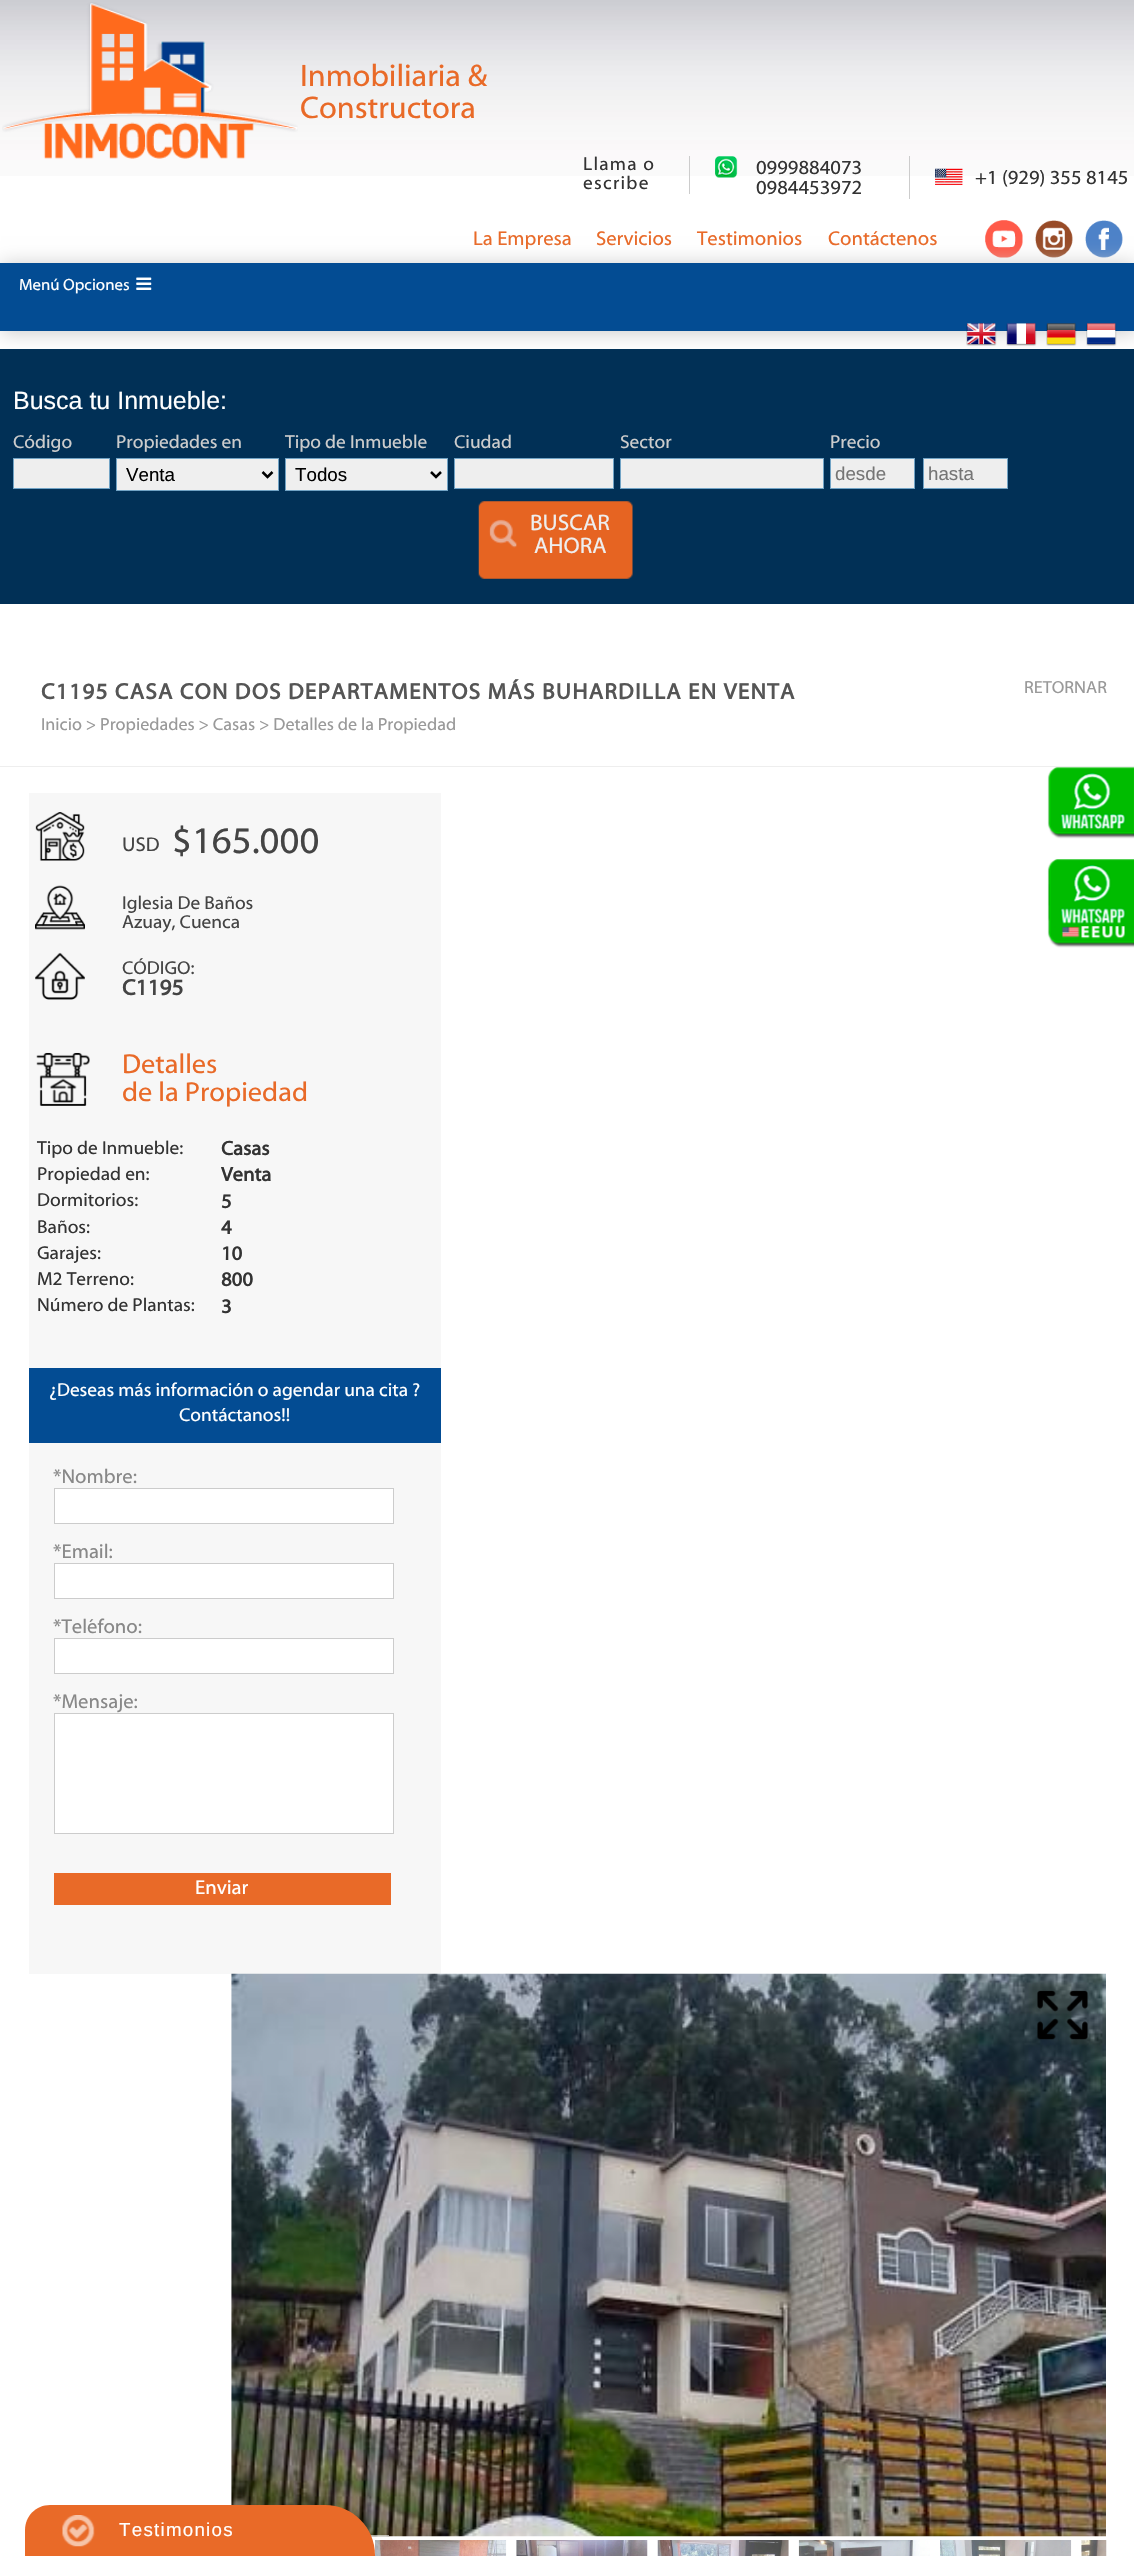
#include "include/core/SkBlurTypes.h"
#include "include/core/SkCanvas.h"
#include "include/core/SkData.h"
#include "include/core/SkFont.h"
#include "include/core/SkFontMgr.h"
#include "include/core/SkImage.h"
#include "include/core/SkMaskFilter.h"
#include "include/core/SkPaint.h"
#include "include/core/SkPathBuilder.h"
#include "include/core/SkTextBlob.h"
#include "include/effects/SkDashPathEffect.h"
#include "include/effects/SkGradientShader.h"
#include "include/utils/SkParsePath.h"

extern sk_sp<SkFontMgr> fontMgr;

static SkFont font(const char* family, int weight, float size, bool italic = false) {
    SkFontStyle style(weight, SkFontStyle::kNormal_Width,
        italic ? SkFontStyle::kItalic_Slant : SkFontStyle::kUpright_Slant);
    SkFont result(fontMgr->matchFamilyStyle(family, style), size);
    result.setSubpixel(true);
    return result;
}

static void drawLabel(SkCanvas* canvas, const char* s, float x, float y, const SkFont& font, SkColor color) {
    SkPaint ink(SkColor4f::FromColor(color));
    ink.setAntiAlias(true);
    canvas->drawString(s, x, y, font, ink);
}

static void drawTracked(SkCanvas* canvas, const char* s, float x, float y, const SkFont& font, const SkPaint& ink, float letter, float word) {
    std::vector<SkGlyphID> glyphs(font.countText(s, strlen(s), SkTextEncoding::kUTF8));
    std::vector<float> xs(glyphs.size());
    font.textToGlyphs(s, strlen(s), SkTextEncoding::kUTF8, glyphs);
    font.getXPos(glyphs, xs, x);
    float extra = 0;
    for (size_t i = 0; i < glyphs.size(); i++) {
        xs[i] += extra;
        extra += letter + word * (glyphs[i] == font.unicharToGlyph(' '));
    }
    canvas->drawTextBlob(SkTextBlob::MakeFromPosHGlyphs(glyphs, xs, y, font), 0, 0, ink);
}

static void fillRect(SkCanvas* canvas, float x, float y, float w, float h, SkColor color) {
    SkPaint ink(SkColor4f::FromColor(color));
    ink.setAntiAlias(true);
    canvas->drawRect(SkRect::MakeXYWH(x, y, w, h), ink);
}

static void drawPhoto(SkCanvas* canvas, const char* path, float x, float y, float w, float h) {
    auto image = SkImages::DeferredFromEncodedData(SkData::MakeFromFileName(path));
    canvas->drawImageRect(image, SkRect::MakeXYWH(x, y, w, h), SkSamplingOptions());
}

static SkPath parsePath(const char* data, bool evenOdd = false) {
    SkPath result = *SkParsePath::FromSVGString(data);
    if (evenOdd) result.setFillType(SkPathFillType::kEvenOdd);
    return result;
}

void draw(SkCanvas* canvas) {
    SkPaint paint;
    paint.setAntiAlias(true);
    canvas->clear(0xFFFFFFFF);
    drawPhoto(canvas, "assets/img1.png", 0, 0, 1134, 176);
    drawPhoto(canvas, "assets/img2.png", 2, 2, 296, 157);
    SkFont font1 = font("Myriad", 400, 31.25f);
    drawLabel(canvas, "Inmobiliaria &", 300, 86, font1, 0xFFE96A28);
    drawLabel(canvas, "Constructora", 300, 118, font1, 0xFFE96A28);
    fillRect(canvas, 689, 156, 1, 38, 0xFFCCCCCC);
    SkFont font2 = font("Myriad", 400, 18.75f);
    paint.setColor(0xFF333333);
    drawTracked(canvas, "Llama o", 583, 170, font2, paint, 1.25f, 0);
    drawTracked(canvas, "escribe", 583, 189, font2, paint, 1.25f, 0);
    fillRect(canvas, 909, 156, 1, 43, 0xFFCCCCCC);
    drawPhoto(canvas, "assets/img3.png", 715, 156, 23, 22);
    SkFont font3 = font("Myriad", 400, 20);
    drawLabel(canvas, "0999884073", 756, 174, font3, 0xFF333333);
    drawLabel(canvas, "0984453972", 756, 194, font3, 0xFF333333);
    drawPhoto(canvas, "assets/img4.png", 935, 168, 28, 17);
    drawLabel(canvas, "+1 (929) 355 8145", 975, 184, font3, 0xFF333333);
    drawLabel(canvas, "La Empresa", 473, 245, font3, 0xFFE96A28);
    drawLabel(canvas, "Servicios", 596, 245, font3, 0xFFE96A28);
    drawLabel(canvas, "Testimonios", 697, 245, font3, 0xFFE96A28);
    drawLabel(canvas, "Contáctenos", 828, 245, font3, 0xFFE96A28);
    drawPhoto(canvas, "assets/img5.png", 985, 220, 38, 38);
    drawPhoto(canvas, "assets/img6.png", 1035, 220, 38, 38);
    drawPhoto(canvas, "assets/img7.png", 1085, 220, 38, 38);
    fillRect(canvas, 0, 349, 1134, 255, 0xFF013056);
    canvas->save();
    canvas->clipRect(SkRect::MakeXYWH(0, 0, 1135, 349));
    paint.setColor(0xFFCCCCCC);
    paint.setMaskFilter(SkMaskFilter::MakeBlur(kNormal_SkBlurStyle, 9.5f));
    canvas->drawRect(SkRect::MakeXYWH(1, 264, 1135, 69), paint);
    paint.setMaskFilter(nullptr);
    canvas->restore();
    fillRect(canvas, 0, 263, 1134, 68, 0xFF034C93);
    SkFont font4 = font("Myriad", 400, 16.25f);
    drawLabel(canvas, "Menú Opciones", 19, 290, font4, 0xFFFFFFFF);
    drawPhoto(canvas, "assets/img8.png", 136, 277, 16, 13);
    drawPhoto(canvas, "assets/img9.png", 966, 323, 31, 23);
    drawPhoto(canvas, "assets/img10.png", 1006, 323, 31, 23);
    drawPhoto(canvas, "assets/img11.png", 1046, 323, 31, 23);
    drawPhoto(canvas, "assets/img12.png", 1086, 323, 31, 23);
    SkFont font5 = font("Liberation Sans", 400, 25);
    drawLabel(canvas, "Busca tu Inmueble:", 13, 409, font5, 0xFFFFFFFF);
    drawLabel(canvas, "Código", 13, 448, font2, 0xFFCCCCCC);
    paint.setColor(0xFFEEEEEE);
    canvas->drawRect(SkRect::MakeXYWH(13.5f, 458.5f, 96, 30), paint);
    paint.setStroke(true);
    paint.setStrokeWidth(1);
    paint.setColor(0xFF71A3C5);
    canvas->drawRect(SkRect::MakeXYWH(13.5f, 458.5f, 96, 30), paint);
    drawLabel(canvas, "Propiedades en", 116, 448, font2, 0xFFCCCCCC);
    paint.setStroke(false);
    paint.setColor(0xFFEFEFEF);
    canvas->drawRect(SkRect::MakeXYWH(116.5f, 458.5f, 162, 32), paint);
    paint.setStroke(true);
    paint.setColor(0xFF71A3C5);
    canvas->drawRect(SkRect::MakeXYWH(116.5f, 458.5f, 162, 32), paint);
    paint.setStrokeWidth(2.5f);
    paint.setColor(0xFF000000);
    canvas->drawPath(parsePath("M262.5 472L267.5 477L272.5 472"), paint);
    SkFont font6 = font("Liberation Sans", 400, 18.75f);
    drawLabel(canvas, "Venta", 126, 481, font6, 0xFF000000);
    drawLabel(canvas, "Tipo de Inmueble", 285, 448, font2, 0xFFCCCCCC);
    paint.setStroke(false);
    paint.setColor(0xFFEFEFEF);
    canvas->drawRect(SkRect::MakeXYWH(285.5f, 458.5f, 162, 32), paint);
    paint.setStroke(true);
    paint.setStrokeWidth(1);
    paint.setColor(0xFF71A3C5);
    canvas->drawRect(SkRect::MakeXYWH(285.5f, 458.5f, 162, 32), paint);
    paint.setStrokeWidth(2.5f);
    paint.setColor(0xFF000000);
    canvas->drawPath(parsePath("M431 472L436 477L441 472"), paint);
    drawLabel(canvas, "Todos", 295, 481, font6, 0xFF000000);
    drawLabel(canvas, "Ciudad", 454, 448, font2, 0xFFCCCCCC);
    paint.setStroke(false);
    paint.setColor(0xFFEEEEEE);
    canvas->drawRect(SkRect::MakeXYWH(454.5f, 458.5f, 159, 30), paint);
    paint.setStroke(true);
    paint.setStrokeWidth(1);
    paint.setColor(0xFF71A3C5);
    canvas->drawRect(SkRect::MakeXYWH(454.5f, 458.5f, 159, 30), paint);
    drawLabel(canvas, "Sector", 620, 448, font2, 0xFFCCCCCC);
    paint.setStroke(false);
    paint.setColor(0xFFEEEEEE);
    canvas->drawRect(SkRect::MakeXYWH(620.5f, 458.5f, 203, 30), paint);
    paint.setStroke(true);
    paint.setColor(0xFF71A3C5);
    canvas->drawRect(SkRect::MakeXYWH(620.5f, 458.5f, 203, 30), paint);
    drawLabel(canvas, "Precio", 830, 448, font2, 0xFFCCCCCC);
    paint.setStroke(false);
    paint.setColor(0xFFEEEEEE);
    canvas->drawRect(SkRect::MakeXYWH(830.5f, 458.5f, 84, 30), paint);
    paint.setStroke(true);
    paint.setColor(0xFF71A3C5);
    canvas->drawRect(SkRect::MakeXYWH(830.5f, 458.5f, 84, 30), paint);
    drawLabel(canvas, "desde", 835, 480, font6, 0xFF757575);
    paint.setStroke(false);
    paint.setColor(0xFFEEEEEE);
    canvas->drawRect(SkRect::MakeXYWH(923.5f, 458.5f, 84, 30), paint);
    paint.setStroke(true);
    paint.setColor(0xFF71A3C5);
    canvas->drawRect(SkRect::MakeXYWH(923.5f, 458.5f, 84, 30), paint);
    drawLabel(canvas, "hasta", 928, 480, font6, 0xFF757575);
    drawPhoto(canvas, "assets/img13.png", 478, 501, 155, 78);
    SkFont font7 = font("Myriad", 400, 22.5f);
    drawLabel(canvas, "BUSCAR", 530, 530, font7, 0xFFEEEEEE);
    drawLabel(canvas, "AHORA", 534, 553, font7, 0xFFEEEEEE);
    fillRect(canvas, 0, 766, 1134, 1, 0xFFEEEEEE);
    SkFont font8 = font("Myriad", 700, 22.5f);
    paint.setStroke(false);
    paint.setColor(0xFF555555);
    drawTracked(canvas, "C1195 CASA CON DOS DEPARTAMENTOS MÁS BUHARDILLA EN VENTA", 41, 699, font8, paint, 1.25f, 0);
    SkFont font9 = font("Myriad", 400, 17.5f);
    drawLabel(canvas, "RETORNAR", 1024, 693, font9, 0xFF999999);
    drawLabel(canvas, "Inicio > Propiedades > Casas > Detalles de la Propiedad", 41, 730, font9, 0xFF999999);
    fillRect(canvas, 29, 793, 412, 1181, 0xFFF7F7F7);
    drawPhoto(canvas, "assets/img14.png", 35, 812, 50, 49);
    drawLabel(canvas, "USD", 122, 851, font3, 0xFF444444);
    SkFont font10 = font("Myriad", 400, 37.5f);
    drawLabel(canvas, "$165.000", 172, 853, font10, 0xFF444444);
    drawPhoto(canvas, "assets/img15.png", 35, 885, 50, 45);
    drawLabel(canvas, "Iglesia De Baños", 122, 909, font2, 0xFF444444);
    drawLabel(canvas, "Azuay, Cuenca", 122, 928, font2, 0xFF444444);
    drawPhoto(canvas, "assets/img16.png", 35, 952, 50, 48);
    drawLabel(canvas, "CÓDIGO:", 122, 974, font2, 0xFF444444);
    drawLabel(canvas, "C1195", 122, 995, font8, 0xFF444444);
    drawPhoto(canvas, "assets/img17.png", 36, 1052, 54, 54);
    SkFont font11 = font("Myriad", 400, 27.5f);
    drawLabel(canvas, "Detalles", 122, 1073, font11, 0xFFE96A28);
    drawLabel(canvas, "de la Propiedad", 122, 1101, font11, 0xFFE96A28);
    drawLabel(canvas, "Tipo de Inmueble:", 37, 1154, font2, 0xFF333333);
    SkFont font12 = font("Myriad", 700, 20);
    drawLabel(canvas, "Casas", 221, 1155, font12, 0xFF333333);
    drawLabel(canvas, "Propiedad en:", 37, 1180, font2, 0xFF333333);
    drawLabel(canvas, "Venta", 221, 1181, font12, 0xFF333333);
    drawLabel(canvas, "Dormitorios:", 37, 1206, font2, 0xFF333333);
    drawLabel(canvas, "5", 221, 1208, font12, 0xFF333333);
    drawLabel(canvas, "Baños:", 37, 1233, font2, 0xFF333333);
    drawLabel(canvas, "4", 221, 1234, font12, 0xFF333333);
    drawLabel(canvas, "Garajes:", 37, 1259, font2, 0xFF333333);
    drawLabel(canvas, "10", 221, 1260, font12, 0xFF333333);
    drawLabel(canvas, "M2 Terreno:", 37, 1285, font2, 0xFF333333);
    drawLabel(canvas, "800", 221, 1286, font12, 0xFF333333);
    drawLabel(canvas, "Número de Plantas:", 37, 1311, font2, 0xFF333333);
    drawLabel(canvas, "3", 221, 1313, font12, 0xFF333333);
    fillRect(canvas, 29, 1368, 412, 75, 0xFF034C93);
    drawLabel(canvas, "¿Deseas más información o agendar una cita ?", 49, 1396, font2, 0xFFFFFFFF);
    drawLabel(canvas, "Contáctanos!!", 179, 1421, font2, 0xFFFFFFFF);
    drawLabel(canvas, "*Nombre:", 53, 1483, font3, 0xFF888888);
    paint.setColor(0xFFFFFFFF);
    canvas->drawRect(SkRect::MakeXYWH(54.5f, 1488.5f, 339, 35), paint);
    paint.setStroke(true);
    paint.setColor(0xFFCCCCCC);
    canvas->drawRect(SkRect::MakeXYWH(54.5f, 1488.5f, 339, 35), paint);
    drawLabel(canvas, "*Email:", 53, 1558, font3, 0xFF888888);
    paint.setStroke(false);
    paint.setColor(0xFFFFFFFF);
    canvas->drawRect(SkRect::MakeXYWH(54.5f, 1563.5f, 339, 35), paint);
    paint.setStroke(true);
    paint.setColor(0xFFCCCCCC);
    canvas->drawRect(SkRect::MakeXYWH(54.5f, 1563.5f, 339, 35), paint);
    drawLabel(canvas, "*Teléfono:", 53, 1633, font3, 0xFF888888);
    paint.setStroke(false);
    paint.setColor(0xFFFFFFFF);
    canvas->drawRect(SkRect::MakeXYWH(54.5f, 1638.5f, 339, 35), paint);
    paint.setStroke(true);
    paint.setColor(0xFFCCCCCC);
    canvas->drawRect(SkRect::MakeXYWH(54.5f, 1638.5f, 339, 35), paint);
    drawLabel(canvas, "*Mensaje:", 53, 1708, font3, 0xFF888888);
    paint.setStroke(false);
    paint.setColor(0xFFFFFFFF);
    canvas->drawRect(SkRect::MakeXYWH(54.5f, 1713.5f, 339, 120), paint);
    paint.setStroke(true);
    paint.setColor(0xFFCCCCCC);
    canvas->drawRect(SkRect::MakeXYWH(54.5f, 1713.5f, 339, 120), paint);
    fillRect(canvas, 54, 1873, 337, 32, 0xFFE96A28);
    drawLabel(canvas, "Enviar", 195, 1894, font3, 0xFFFFFFFF);
    drawPhoto(canvas, "assets/img18.png", 231, 1973, 875, 564);
    fillRect(canvas, 370, 2535, 19, 1, 0x99FFFFFF);
    drawPhoto(canvas, "assets/img19.png", 375, 2540, 132, 16);
    drawPhoto(canvas, "assets/img20.png", 516, 2540, 132, 16);
    drawPhoto(canvas, "assets/img21.png", 657, 2540, 132, 16);
    drawPhoto(canvas, "assets/img22.png", 798, 2540, 132, 16);
    drawPhoto(canvas, "assets/img23.png", 940, 2540, 132, 16);
    drawPhoto(canvas, "assets/img24.png", 1081, 2540, 26, 16);
    drawPhoto(canvas, "assets/img25.png", 1037, 1990, 51, 50);
    drawPhoto(canvas, "assets/img26.png", 1047, 767, 87, 72);
    drawPhoto(canvas, "assets/img27.png", 1047, 859, 87, 89);
    paint.setStroke(false);
    paint.setColor(0xFFE96A28);
    canvas->drawPath(parsePath("M50 2505H325C352.5 2505 375 2527.5 375 2555V2556H25V2530C25 2516 36 2505 50 2505Z"), paint);
    drawPhoto(canvas, "assets/img28.png", 62, 2515, 33, 32);
    paint.setColor(0xFFFFFFFF);
    drawTracked(canvas, "Testimonios", 119, 2536, font6, paint, 1.25f, 0);
}
